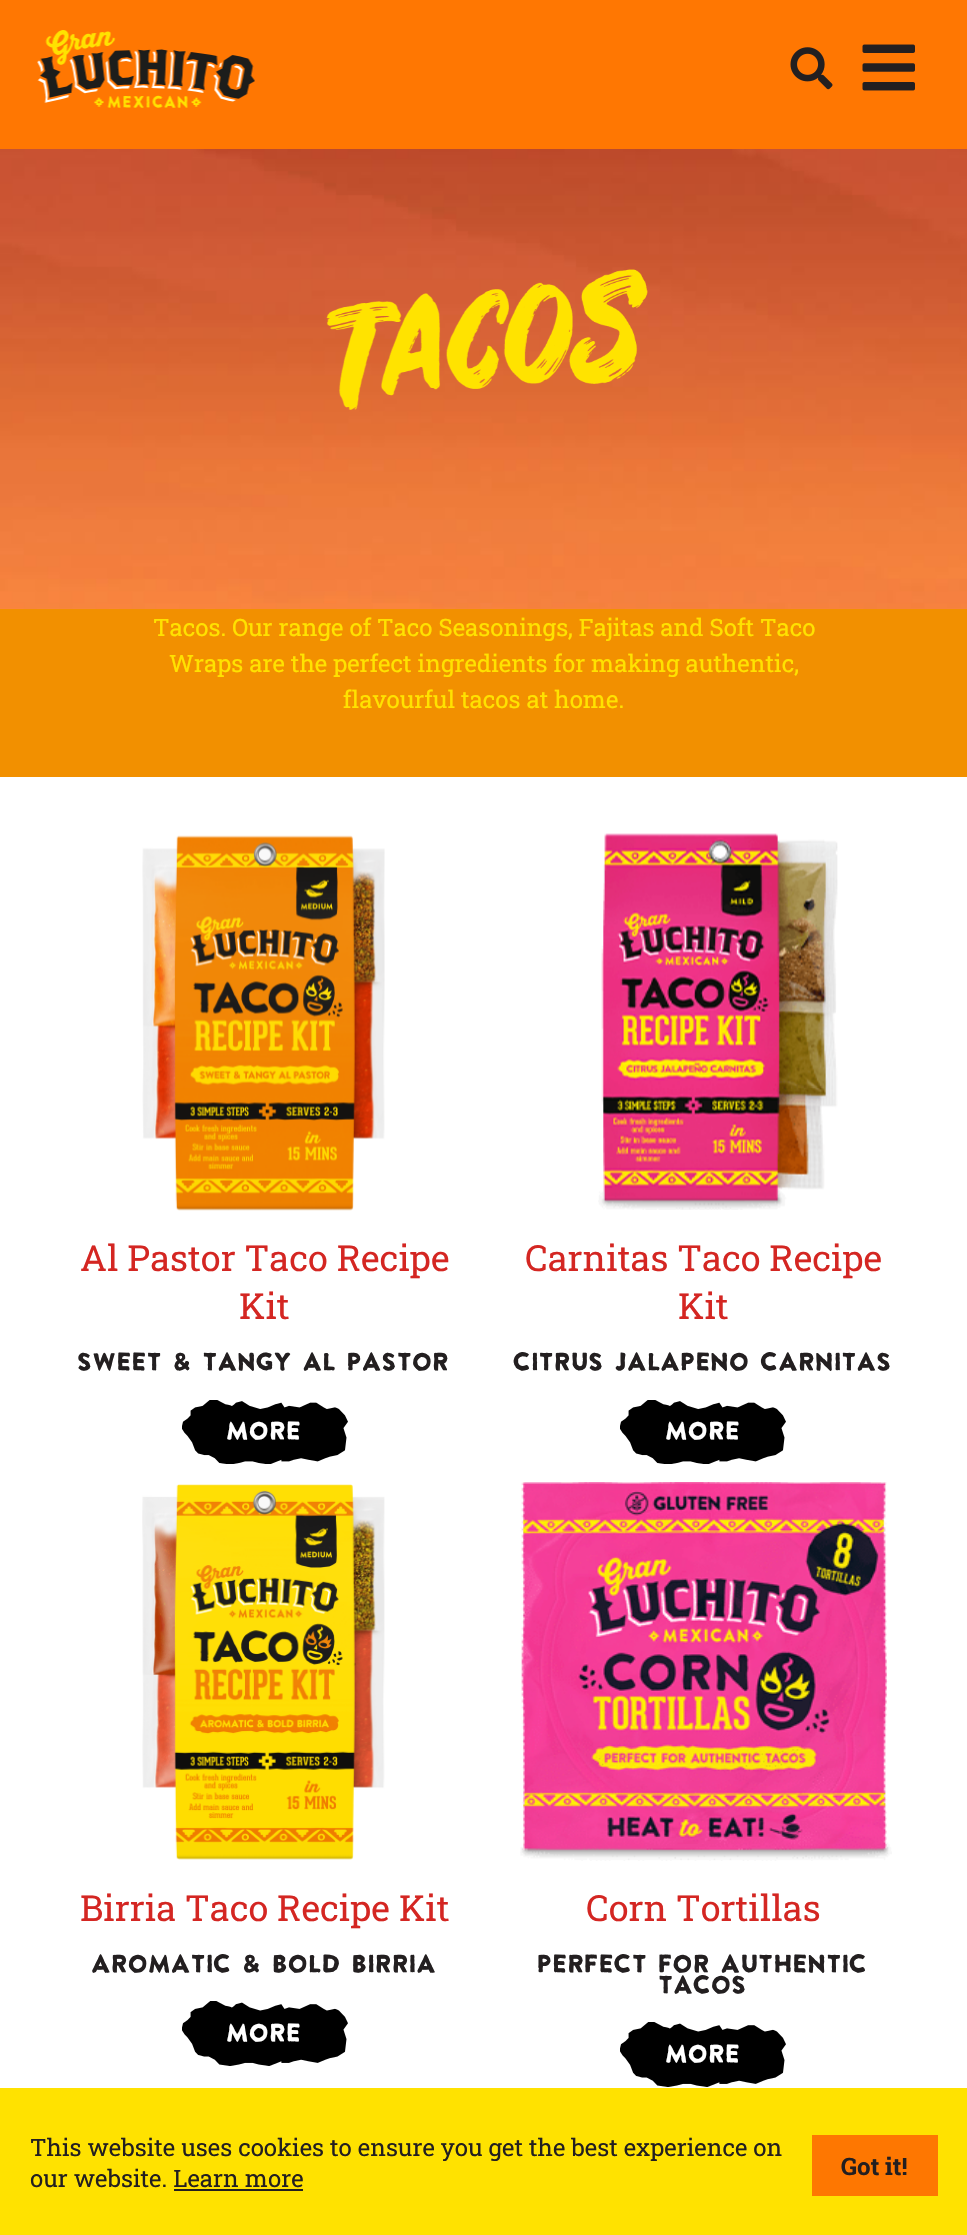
#include "include/core/SkBlurTypes.h"
#include "include/core/SkCanvas.h"
#include "include/core/SkData.h"
#include "include/core/SkFont.h"
#include "include/core/SkFontMgr.h"
#include "include/core/SkImage.h"
#include "include/core/SkMaskFilter.h"
#include "include/core/SkPaint.h"
#include "include/core/SkPathBuilder.h"
#include "include/core/SkTextBlob.h"
#include "include/effects/SkDashPathEffect.h"
#include "include/effects/SkGradientShader.h"
#include "include/utils/SkParsePath.h"

extern sk_sp<SkFontMgr> fontMgr;

static SkFont font(const char* family, int weight, float size, bool italic = false) {
    SkFontStyle style(weight, SkFontStyle::kNormal_Width,
        italic ? SkFontStyle::kItalic_Slant : SkFontStyle::kUpright_Slant);
    SkFont result(fontMgr->matchFamilyStyle(family, style), size);
    result.setSubpixel(true);
    return result;
}

static void drawLabel(SkCanvas* canvas, const char* s, float x, float y, const SkFont& font, SkColor color) {
    SkPaint ink(SkColor4f::FromColor(color));
    ink.setAntiAlias(true);
    canvas->drawString(s, x, y, font, ink);
}

static void drawTracked(SkCanvas* canvas, const char* s, float x, float y, const SkFont& font, const SkPaint& ink, float letter, float word) {
    std::vector<SkGlyphID> glyphs(font.countText(s, strlen(s), SkTextEncoding::kUTF8));
    std::vector<float> xs(glyphs.size());
    font.textToGlyphs(s, strlen(s), SkTextEncoding::kUTF8, glyphs);
    font.getXPos(glyphs, xs, x);
    float extra = 0;
    for (size_t i = 0; i < glyphs.size(); i++) {
        xs[i] += extra;
        extra += letter + word * (glyphs[i] == font.unicharToGlyph(' '));
    }
    canvas->drawTextBlob(SkTextBlob::MakeFromPosHGlyphs(glyphs, xs, y, font), 0, 0, ink);
}

static void fillRect(SkCanvas* canvas, float x, float y, float w, float h, SkColor color) {
    SkPaint ink(SkColor4f::FromColor(color));
    ink.setAntiAlias(true);
    canvas->drawRect(SkRect::MakeXYWH(x, y, w, h), ink);
}

static void drawPhoto(SkCanvas* canvas, const char* path, float x, float y, float w, float h) {
    auto image = SkImages::DeferredFromEncodedData(SkData::MakeFromFileName(path));
    canvas->drawImageRect(image, SkRect::MakeXYWH(x, y, w, h), SkSamplingOptions());
}

void draw(SkCanvas* canvas) {
    SkPaint paint;
    paint.setAntiAlias(true);
    canvas->clear(0xFFFFFFFF);
    fillRect(canvas, 0, 0, 967, 149, 0xFFFF7702);
    drawPhoto(canvas, "assets/img1.png", 37, 30, 218, 78);
    drawPhoto(canvas, "assets/img2.png", 790, 47, 43, 43);
    drawPhoto(canvas, "assets/img3.png", 862, 44, 53, 47);
    drawPhoto(canvas, "assets/img4.png", 0, 149, 967, 460);
    drawPhoto(canvas, "assets/img5.png", 326, 269, 322, 141);
    fillRect(canvas, 0, 609, 967, 168, 0xFFF29000);
    SkFont font1 = font("Roboto Slab", 400, 24);
    drawLabel(canvas, "Tacos. Our range of Taco Seasonings, Fajitas and Soft Taco", 153, 636, font1, 0xFFFFE200);
    drawLabel(canvas, "Wraps are the perfect ingredients for making authentic,", 169, 672, font1, 0xFFFFE200);
    drawLabel(canvas, "flavourful tacos at home.", 343, 708, font1, 0xFFFFE200);
    drawPhoto(canvas, "assets/img6.png", 142, 835, 243, 376);
    SkFont font2 = font("Roboto Slab", 400, 36);
    drawLabel(canvas, "Al Pastor Taco Recipe", 80, 1271, font2, 0xFFD42622);
    drawLabel(canvas, "Kit", 239, 1319, font2, 0xFFD42622);
    SkFont font3 = font("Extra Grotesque", 400, 18);
    paint.setColor(0xFF231F20);
    drawTracked(canvas, "SWEET & TANGY AL PASTOR", 78, 1369, font3, paint, 1.5f, 0);
    drawPhoto(canvas, "assets/img7.png", 182, 1400, 166, 64);
    paint.setColor(0xFFFFFFFF);
    drawTracked(canvas, "MORE", 227, 1438, font3, paint, 1.5f, 0);
    drawPhoto(canvas, "assets/img8.png", 598, 833, 240, 377);
    drawLabel(canvas, "Carnitas Taco Recipe", 525, 1271, font2, 0xFFD42622);
    drawLabel(canvas, "Kit", 678, 1319, font2, 0xFFD42622);
    paint.setColor(0xFF231F20);
    drawTracked(canvas, "CITRUS JALAPENO CARNITAS", 514, 1369, font3, paint, 1.5f, 0);
    drawPhoto(canvas, "assets/img7.png", 620, 1400, 166, 64);
    paint.setColor(0xFFFFFFFF);
    drawTracked(canvas, "MORE", 666, 1438, font3, paint, 1.5f, 0);
    drawPhoto(canvas, "assets/img9.png", 142, 1484, 243, 376);
    drawLabel(canvas, "Birria Taco Recipe Kit", 80, 1921, font2, 0xFFD42622);
    paint.setColor(0xFF231F20);
    drawTracked(canvas, "AROMATIC & BOLD BIRRIA", 92, 1971, font3, paint, 1.5f, 0);
    drawPhoto(canvas, "assets/img10.png", 182, 2001, 166, 65);
    paint.setColor(0xFFFFFFFF);
    drawTracked(canvas, "MORE", 227, 2040, font3, paint, 1.5f, 0);
    drawPhoto(canvas, "assets/img11.png", 520, 1482, 372, 379);
    drawLabel(canvas, "Corn Tortillas", 586, 1921, font2, 0xFFD42622);
    paint.setColor(0xFF231F20);
    drawTracked(canvas, "PERFECT FOR AUTHENTIC", 538, 1971, font3, paint, 1.5f, 0);
    drawTracked(canvas, "TACOS", 659, 1992, font3, paint, 1.5f, 0);
    drawPhoto(canvas, "assets/img10.png", 620, 2022, 166, 65);
    paint.setColor(0xFFFFFFFF);
    drawTracked(canvas, "MORE", 666, 2061, font3, paint, 1.5f, 0);
    fillRect(canvas, 0, 2088, 967, 147, 0xFFFFE200);
    drawLabel(canvas, "This website uses cookies to ensure you get the best experience on", 30, 2156, font1, 0xFF231F20);
    drawLabel(canvas, "our website. Learn more", 30, 2187, font1, 0xFF231F20);
    fillRect(canvas, 174, 2189, 129, 2, 0xFF231F20);
    fillRect(canvas, 812, 2135, 126, 61, 0xFFFE7701);
    SkFont font4 = font("Roboto Slab", 700, 24);
    drawLabel(canvas, "Got it!", 841, 2175, font4, 0xFF231F20);
}
